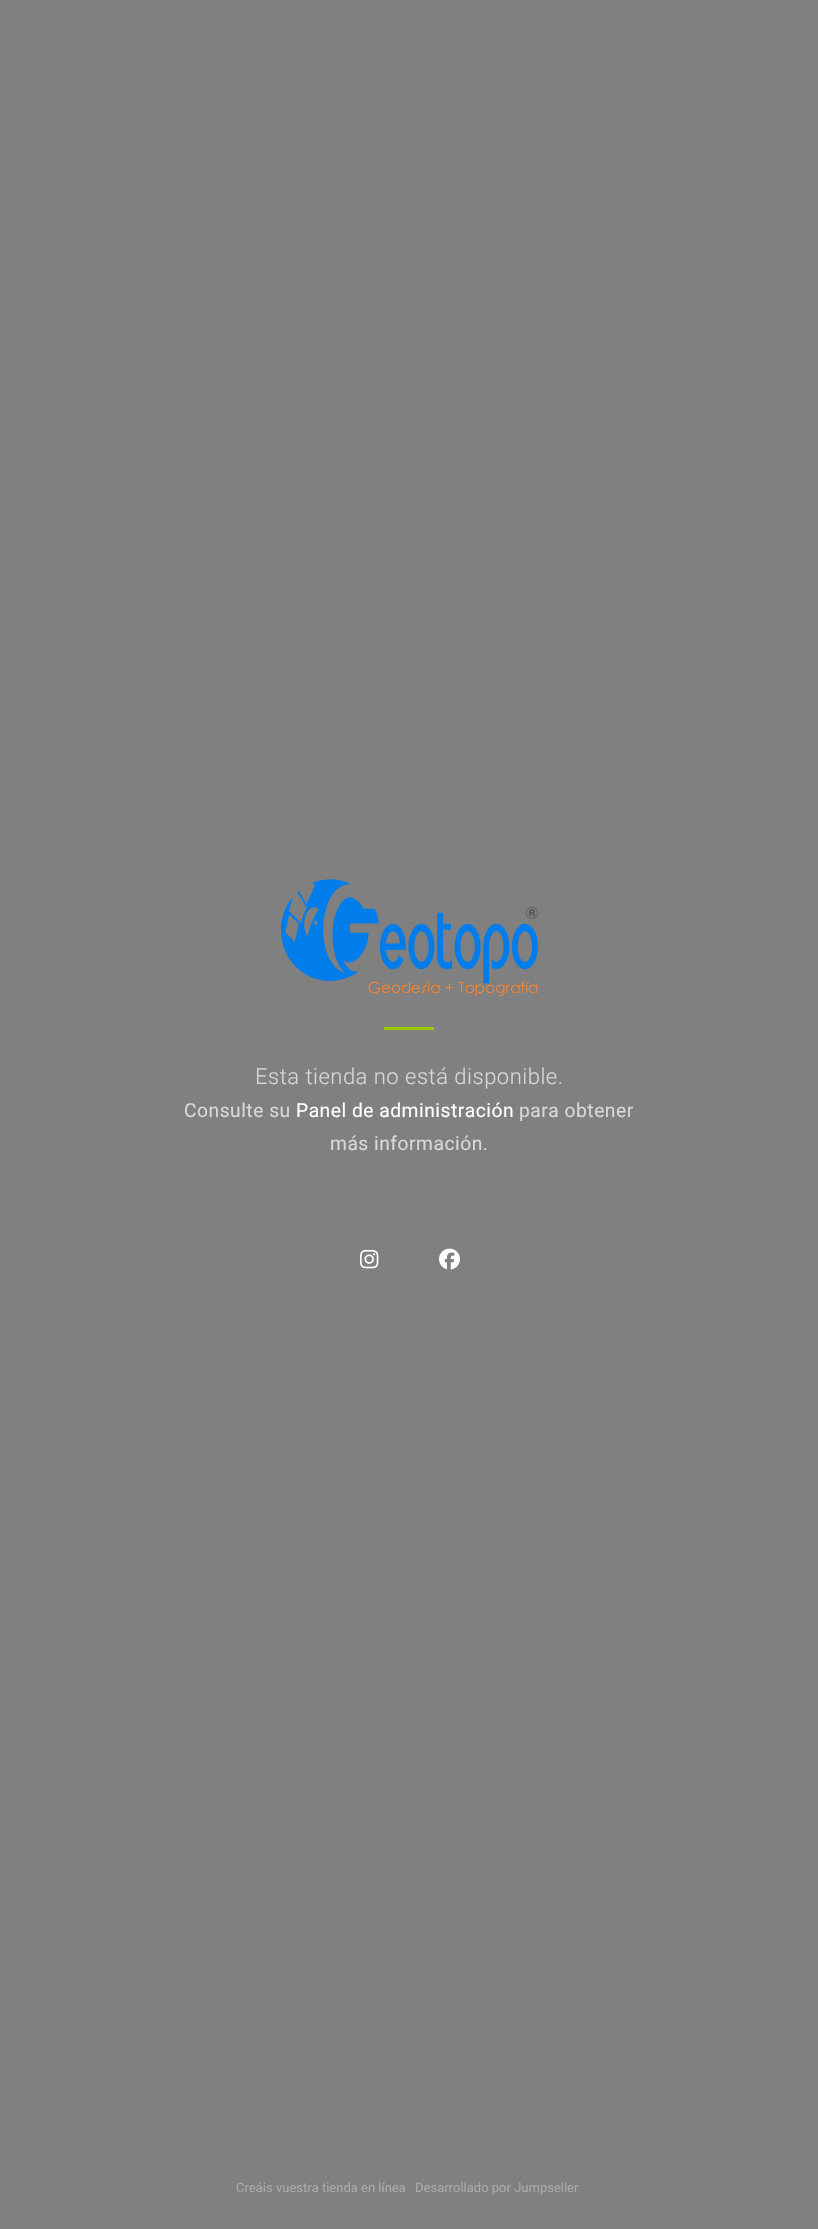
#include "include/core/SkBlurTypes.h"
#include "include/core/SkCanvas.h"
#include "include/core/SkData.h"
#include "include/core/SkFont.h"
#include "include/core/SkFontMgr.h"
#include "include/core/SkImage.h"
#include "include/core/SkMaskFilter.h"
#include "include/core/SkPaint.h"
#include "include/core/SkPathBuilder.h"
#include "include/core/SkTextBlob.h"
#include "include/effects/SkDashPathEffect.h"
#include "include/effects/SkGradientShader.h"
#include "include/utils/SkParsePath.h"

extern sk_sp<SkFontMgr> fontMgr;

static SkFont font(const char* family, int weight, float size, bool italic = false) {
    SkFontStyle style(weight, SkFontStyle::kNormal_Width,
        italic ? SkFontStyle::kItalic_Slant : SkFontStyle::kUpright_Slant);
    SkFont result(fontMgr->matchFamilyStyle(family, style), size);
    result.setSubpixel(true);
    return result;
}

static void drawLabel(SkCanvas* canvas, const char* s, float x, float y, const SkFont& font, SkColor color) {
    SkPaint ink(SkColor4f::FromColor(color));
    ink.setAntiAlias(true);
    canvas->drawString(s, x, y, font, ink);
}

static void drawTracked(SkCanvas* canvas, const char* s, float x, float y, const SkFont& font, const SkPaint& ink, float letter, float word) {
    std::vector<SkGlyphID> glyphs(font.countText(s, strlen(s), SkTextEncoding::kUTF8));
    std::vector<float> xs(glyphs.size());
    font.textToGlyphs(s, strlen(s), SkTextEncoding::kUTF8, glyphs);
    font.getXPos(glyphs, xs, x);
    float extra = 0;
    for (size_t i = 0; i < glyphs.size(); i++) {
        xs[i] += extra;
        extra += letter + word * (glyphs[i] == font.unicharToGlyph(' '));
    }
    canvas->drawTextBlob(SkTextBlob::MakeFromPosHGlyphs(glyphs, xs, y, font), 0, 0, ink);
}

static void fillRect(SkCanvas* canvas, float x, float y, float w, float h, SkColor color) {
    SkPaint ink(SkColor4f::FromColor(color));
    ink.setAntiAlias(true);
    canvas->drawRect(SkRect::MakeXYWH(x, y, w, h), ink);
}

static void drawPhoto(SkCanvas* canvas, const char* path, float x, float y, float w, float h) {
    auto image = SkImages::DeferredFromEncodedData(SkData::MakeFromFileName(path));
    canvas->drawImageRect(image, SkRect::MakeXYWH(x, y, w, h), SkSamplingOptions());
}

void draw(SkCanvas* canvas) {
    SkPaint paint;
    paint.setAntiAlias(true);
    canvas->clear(0xFF808080);
    drawPhoto(canvas, "assets/img1.png", 281, 879, 257, 118);
    fillRect(canvas, 384, 1027, 50, 3, 0xFF99CC00);
    SkFont font1 = font("Roboto", 300, 22);
    paint.setColor(0xFFD9D9D9);
    drawTracked(canvas, "Esta tienda no está disponible.", 255, 1084, font1, paint, 0.5f, 0);
    SkFont font2 = font("Roboto", 400, 19.25f);
    drawTracked(canvas, "Consulte su", 184, 1117, font2, paint, 0.5f, 0);
    paint.setColor(0xFFFFFFFF);
    drawTracked(canvas, "Panel de administración", 296, 1117, font2, paint, 0.5f, 0);
    paint.setColor(0xFFD9D9D9);
    drawTracked(canvas, "para obtener", 519, 1117, font2, paint, 0.5f, 0);
    drawTracked(canvas, "más información.", 330, 1150, font2, paint, 0.5f, 0);
    drawPhoto(canvas, "assets/img2.png", 360, 1249, 19, 20);
    drawPhoto(canvas, "assets/img3.png", 439, 1248, 21, 22);
    SkFont font3 = font("Roboto", 400, 13);
    drawLabel(canvas, "Creáis vuestra tienda en línea", 236, 2192, font3, 0xFFAAAAAA);
    drawLabel(canvas, "Desarrollado por Jumpseller", 415, 2192, font3, 0xFFAAAAAA);
}
